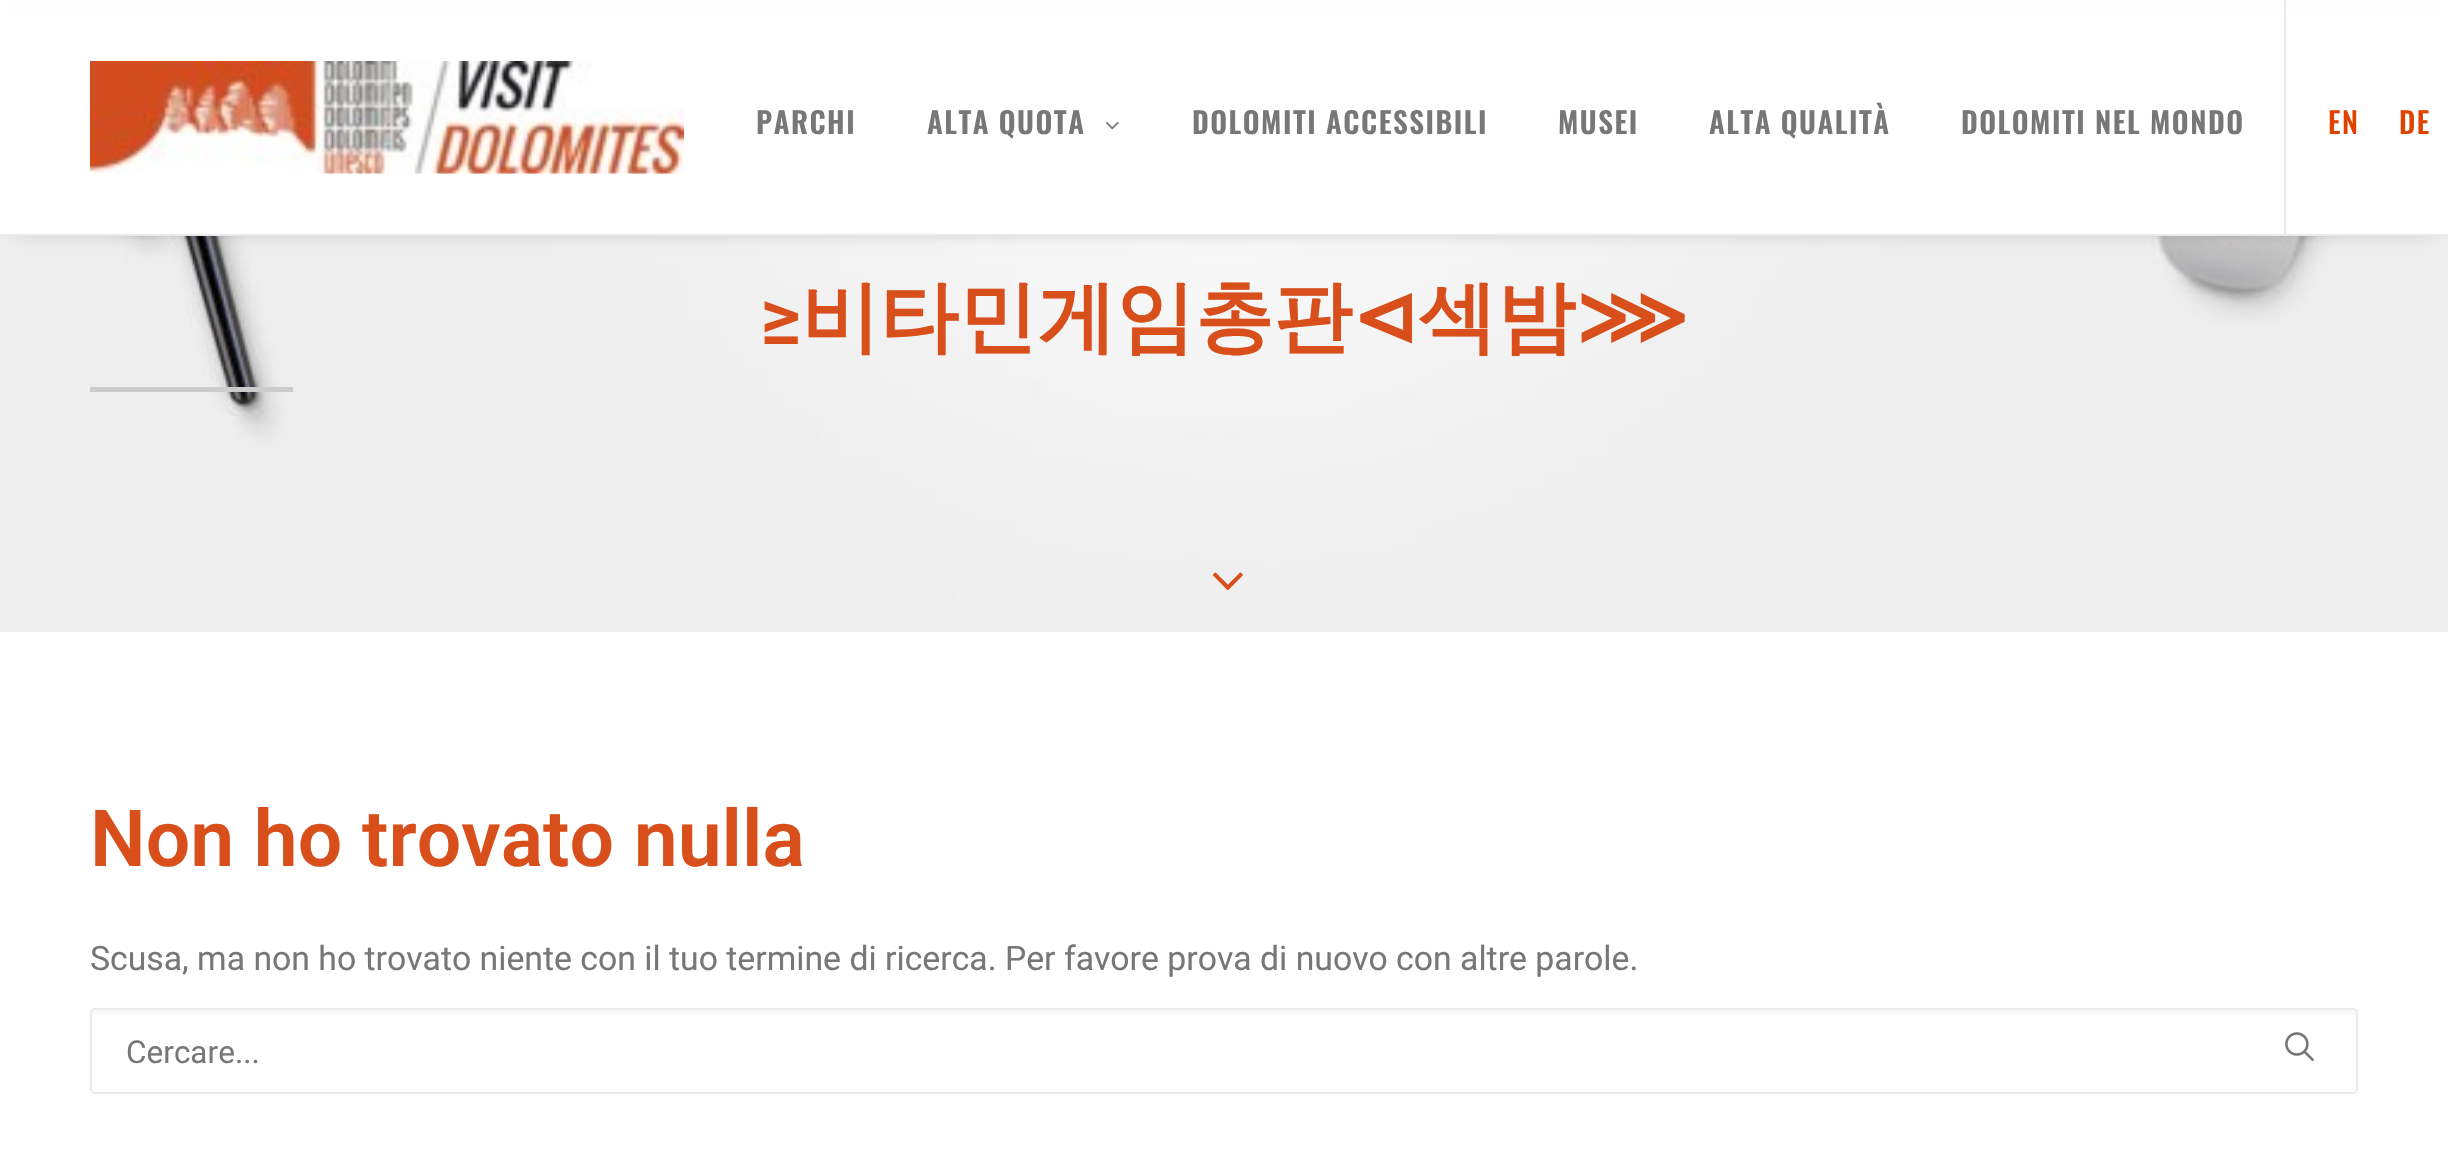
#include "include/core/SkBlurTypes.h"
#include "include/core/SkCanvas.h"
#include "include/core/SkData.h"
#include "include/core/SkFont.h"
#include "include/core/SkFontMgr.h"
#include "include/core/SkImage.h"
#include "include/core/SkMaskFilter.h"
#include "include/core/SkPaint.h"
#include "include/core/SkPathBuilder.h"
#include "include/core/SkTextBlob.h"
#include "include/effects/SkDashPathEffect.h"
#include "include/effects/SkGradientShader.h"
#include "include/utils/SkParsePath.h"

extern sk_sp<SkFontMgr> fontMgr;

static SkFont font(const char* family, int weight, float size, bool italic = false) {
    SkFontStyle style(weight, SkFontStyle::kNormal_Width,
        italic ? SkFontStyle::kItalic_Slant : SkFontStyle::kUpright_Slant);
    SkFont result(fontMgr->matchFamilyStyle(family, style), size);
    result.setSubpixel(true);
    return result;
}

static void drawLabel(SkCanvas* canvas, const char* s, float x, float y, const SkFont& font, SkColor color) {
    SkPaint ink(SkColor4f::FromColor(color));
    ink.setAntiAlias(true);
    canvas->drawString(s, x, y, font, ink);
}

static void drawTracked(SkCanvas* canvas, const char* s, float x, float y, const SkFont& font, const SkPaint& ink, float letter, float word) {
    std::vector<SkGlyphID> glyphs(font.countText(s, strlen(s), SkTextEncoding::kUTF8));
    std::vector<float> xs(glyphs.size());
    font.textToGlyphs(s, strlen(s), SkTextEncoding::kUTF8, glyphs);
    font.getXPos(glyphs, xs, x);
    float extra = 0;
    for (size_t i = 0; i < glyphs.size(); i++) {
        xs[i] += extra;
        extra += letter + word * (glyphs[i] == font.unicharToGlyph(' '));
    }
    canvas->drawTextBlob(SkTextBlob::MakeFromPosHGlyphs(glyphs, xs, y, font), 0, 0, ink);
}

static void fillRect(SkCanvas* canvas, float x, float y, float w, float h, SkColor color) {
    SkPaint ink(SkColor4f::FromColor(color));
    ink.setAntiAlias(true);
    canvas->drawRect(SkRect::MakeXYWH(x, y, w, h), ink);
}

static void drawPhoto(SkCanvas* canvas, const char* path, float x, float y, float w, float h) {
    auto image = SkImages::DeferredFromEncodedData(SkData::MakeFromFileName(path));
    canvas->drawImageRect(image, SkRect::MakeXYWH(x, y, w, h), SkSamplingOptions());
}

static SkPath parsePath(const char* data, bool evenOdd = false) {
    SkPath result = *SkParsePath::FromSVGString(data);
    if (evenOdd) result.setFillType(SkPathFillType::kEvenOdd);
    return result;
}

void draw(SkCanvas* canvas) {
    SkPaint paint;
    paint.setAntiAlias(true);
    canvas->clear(0xFFFFFFFF);
    drawPhoto(canvas, "assets/img3.png", 0, 236, 2448, 396);
    paint.setColor(0x99000000);
    paint.setMaskFilter(SkMaskFilter::MakeBlur(kNormal_SkBlurStyle, 11));
    canvas->drawRect(SkRect::MakeXYWH(18, 32, 2412, 191), paint);
    paint.setMaskFilter(nullptr);
    fillRect(canvas, 0, 9, 2448, 225, 0xFFFFFFFF);
    fillRect(canvas, 0, 234, 2448, 2, 0xFFEAEAEA);
    drawPhoto(canvas, "assets/img1.png", 90, 61, 594, 113);
    SkFont font1 = font("Oswald", 600, 29.25f);
    paint.setColor(0xFF777777);
    drawTracked(canvas, "PARCHI", 756, 134, font1, paint, 1.5f, 0);
    drawTracked(canvas, "ALTA QUOTA", 927, 134, font1, paint, 1.5f, 0);
    drawPhoto(canvas, "assets/img2.png", 1105, 121, 14, 9);
    drawTracked(canvas, "DOLOMITI ACCESSIBILI", 1192, 134, font1, paint, 1.5f, 0);
    drawTracked(canvas, "MUSEI", 1558, 134, font1, paint, 1.5f, 0);
    drawTracked(canvas, "ALTA QUALITÀ", 1709, 134, font1, paint, 1.5f, 0);
    drawTracked(canvas, "DOLOMITI NEL MONDO", 1961, 134, font1, paint, 1.5f, 0);
    fillRect(canvas, 2284, 0, 2, 234, 0xFFEAEAEA);
    SkFont font2 = font("Oswald", 500, 29.25f);
    paint.setColor(0xFFE24200);
    drawTracked(canvas, "EN", 2328, 134, font2, paint, 1.5f, 0);
    drawTracked(canvas, "DE", 2399, 134, font2, paint, 1.5f, 0);
    SkFont font3 = font("Roboto", 600, 78.75f);
    drawLabel(canvas, "≥", 760, 344, font3, 0xFFD84F1C);
    SkFont font4 = font("WenQuanYi Zen Hei", 700, 78.75f);
    drawLabel(canvas, "비타민게임총판", 801, 344, font4, 0xFFD84F1C);
    SkFont font5 = font("DejaVu Sans", 700, 78.75f);
    drawLabel(canvas, "⊲", 1352, 344, font5, 0xFFD84F1C);
    drawLabel(canvas, "섹밤", 1418, 344, font4, 0xFFD84F1C);
    drawLabel(canvas, "⋙", 1576, 344, font5, 0xFFD84F1C);
    fillRect(canvas, 90, 387, 203, 5, 0xFFCCCCCC);
    drawPhoto(canvas, "assets/img4.png", 1212, 572, 31, 18);
    drawLabel(canvas, "Non ho trovato nulla", 90, 866, font3, 0xFFD84F1C);
    SkFont font6 = font("Roboto", 400, 33.75f);
    drawLabel(canvas, "Scusa, ma non ho trovato niente con il tuo termine di ricerca. Per favore prova di nuovo con altre parole.", 90, 970, font6, 0xFF777777);
    paint.setColor(0xFFF9F9F9);
    canvas->drawPath(parsePath("M94 1015H2354C2355 1015 2356 1016 2356 1017V1012C2356 1011 2355 1010 2354 1010H94C93 1010 92 1011 92 1012V1017C92 1016 93 1015 94 1015Z"), paint);
    paint.setStroke(true);
    paint.setStrokeWidth(2);
    paint.setColor(0xFFEAEAEA);
    canvas->drawRoundRect(SkRect::MakeXYWH(91, 1009, 2266, 84), 4, 4, paint);
    SkFont font7 = font("Roboto", 400, 31.5f);
    drawLabel(canvas, "Cercare...", 126, 1063, font7, 0xFF777777);
    drawPhoto(canvas, "assets/img5.png", 2285, 1032, 29, 29);
}
